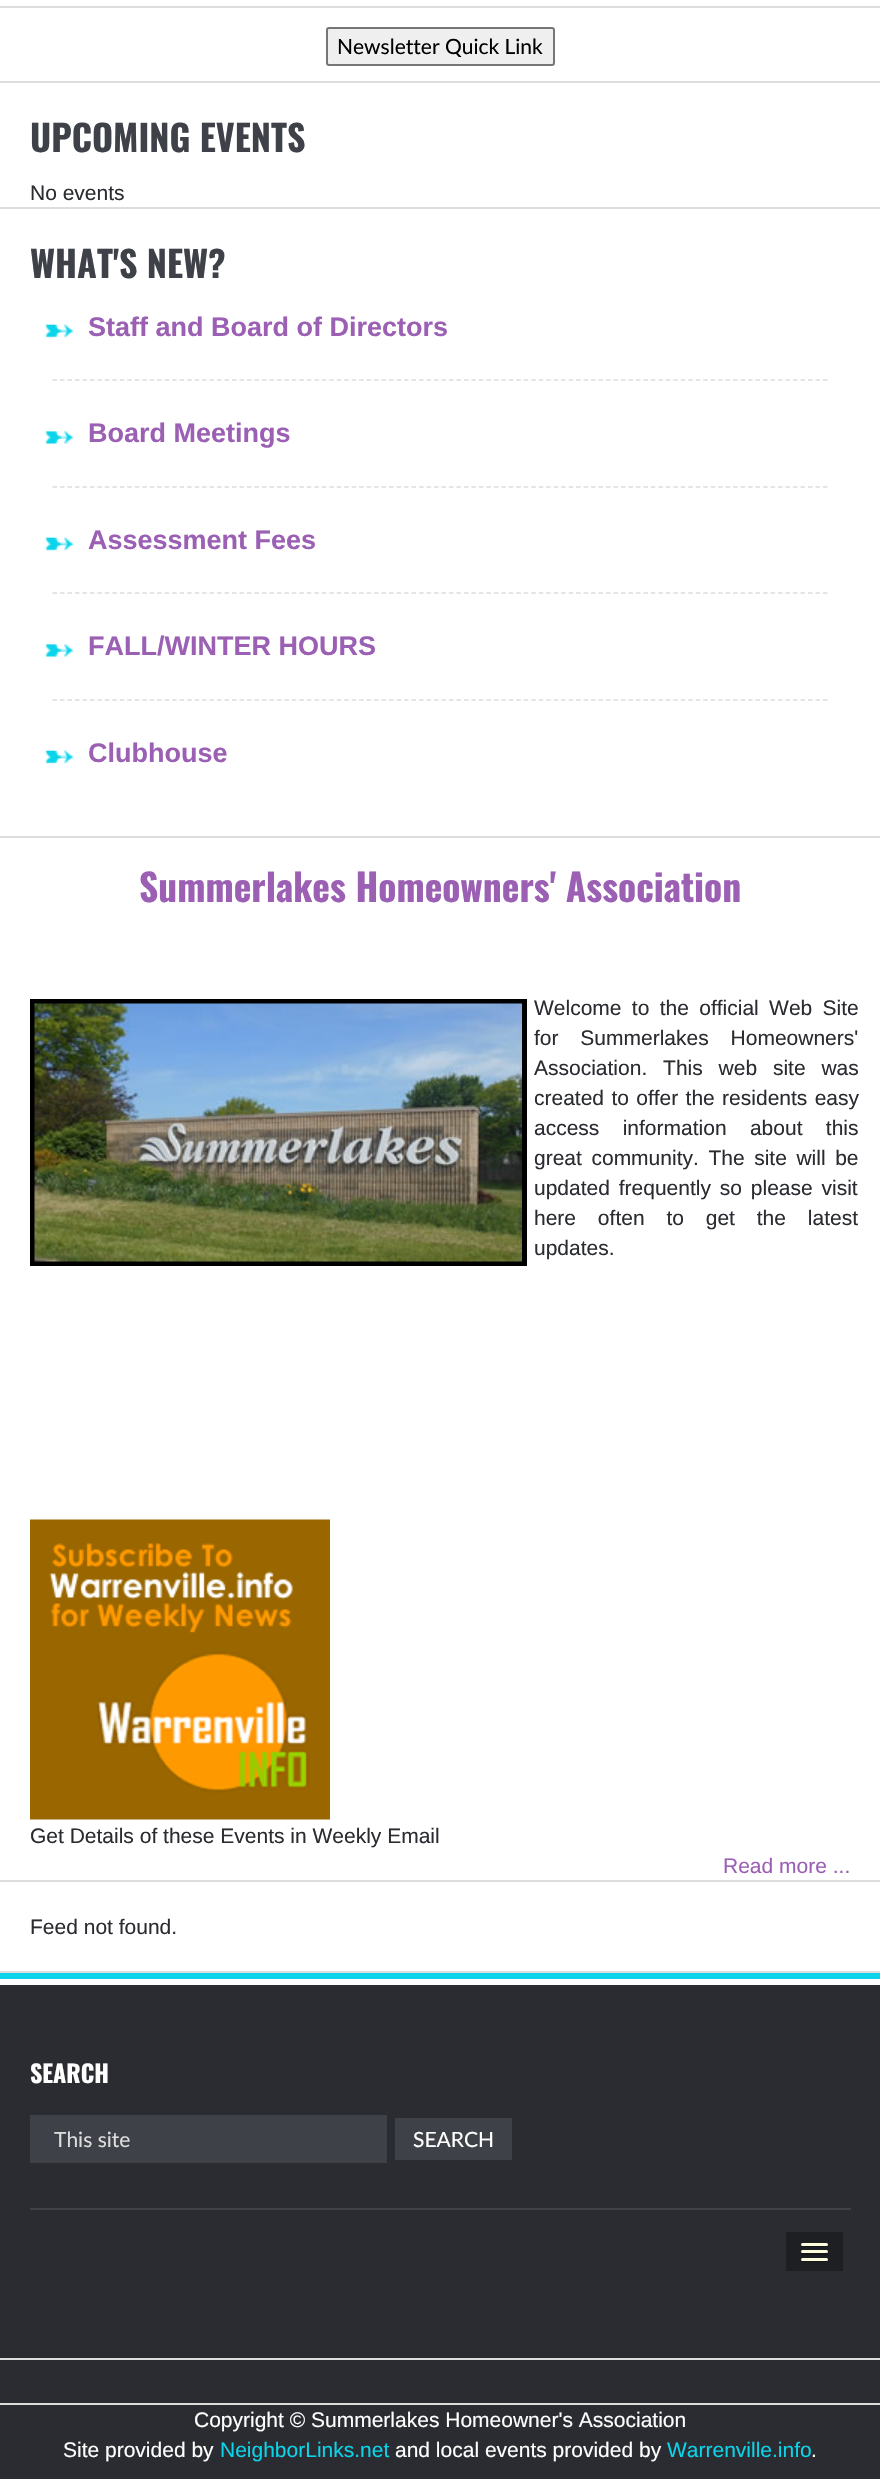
#include "include/core/SkBlurTypes.h"
#include "include/core/SkCanvas.h"
#include "include/core/SkData.h"
#include "include/core/SkFont.h"
#include "include/core/SkFontMgr.h"
#include "include/core/SkImage.h"
#include "include/core/SkMaskFilter.h"
#include "include/core/SkPaint.h"
#include "include/core/SkPathBuilder.h"
#include "include/core/SkTextBlob.h"
#include "include/effects/SkDashPathEffect.h"
#include "include/effects/SkGradientShader.h"
#include "include/utils/SkParsePath.h"

extern sk_sp<SkFontMgr> fontMgr;

static SkFont font(const char* family, int weight, float size, bool italic = false) {
    SkFontStyle style(weight, SkFontStyle::kNormal_Width,
        italic ? SkFontStyle::kItalic_Slant : SkFontStyle::kUpright_Slant);
    SkFont result(fontMgr->matchFamilyStyle(family, style), size);
    result.setSubpixel(true);
    return result;
}

static void drawLabel(SkCanvas* canvas, const char* s, float x, float y, const SkFont& font, SkColor color) {
    SkPaint ink(SkColor4f::FromColor(color));
    ink.setAntiAlias(true);
    canvas->drawString(s, x, y, font, ink);
}

static void drawTracked(SkCanvas* canvas, const char* s, float x, float y, const SkFont& font, const SkPaint& ink, float letter, float word) {
    std::vector<SkGlyphID> glyphs(font.countText(s, strlen(s), SkTextEncoding::kUTF8));
    std::vector<float> xs(glyphs.size());
    font.textToGlyphs(s, strlen(s), SkTextEncoding::kUTF8, glyphs);
    font.getXPos(glyphs, xs, x);
    float extra = 0;
    for (size_t i = 0; i < glyphs.size(); i++) {
        xs[i] += extra;
        extra += letter + word * (glyphs[i] == font.unicharToGlyph(' '));
    }
    canvas->drawTextBlob(SkTextBlob::MakeFromPosHGlyphs(glyphs, xs, y, font), 0, 0, ink);
}

static void fillRect(SkCanvas* canvas, float x, float y, float w, float h, SkColor color) {
    SkPaint ink(SkColor4f::FromColor(color));
    ink.setAntiAlias(true);
    canvas->drawRect(SkRect::MakeXYWH(x, y, w, h), ink);
}

static void fillRRect(SkCanvas* canvas, float x, float y, float w, float h, float radius, SkColor color) {
    SkPaint ink(SkColor4f::FromColor(color));
    ink.setAntiAlias(true);
    canvas->drawRoundRect(SkRect::MakeXYWH(x, y, w, h), radius, radius, ink);
}

static void drawPhoto(SkCanvas* canvas, const char* path, float x, float y, float w, float h) {
    auto image = SkImages::DeferredFromEncodedData(SkData::MakeFromFileName(path));
    canvas->drawImageRect(image, SkRect::MakeXYWH(x, y, w, h), SkSamplingOptions());
}

static SkPath parsePath(const char* data, bool evenOdd = false) {
    SkPath result = *SkParsePath::FromSVGString(data);
    if (evenOdd) result.setFillType(SkPathFillType::kEvenOdd);
    return result;
}

void draw(SkCanvas* canvas) {
    SkPaint paint;
    paint.setAntiAlias(true);
    canvas->clear(0xFFFFFFFF);
    fillRect(canvas, 0, 836, 880, 2, 0xFFDDDDDD);
    fillRect(canvas, 0, 81, 880, 2, 0xFFDDDDDD);
    fillRect(canvas, 0, 6, 880, 2, 0xFFDDDDDD);
    paint.setColor(0xFFEFEFEF);
    canvas->drawRoundRect(SkRect::MakeXYWH(327, 28, 227, 37), 2, 2, paint);
    paint.setStroke(true);
    paint.setStrokeWidth(2);
    paint.setColor(0xFF767676);
    canvas->drawRoundRect(SkRect::MakeXYWH(327, 28, 227, 37), 2, 2, paint);
    SkFont font1 = font("Lato", 400, 21);
    drawLabel(canvas, "Newsletter Quick Link", 337, 54, font1, 0xFF000000);
    fillRect(canvas, 0, 207, 880, 2, 0xFFDDDDDD);
    SkFont font2 = font("Oswald", 700, 36);
    drawLabel(canvas, "UPCOMING EVENTS", 30, 152, font2, 0xFF3E4147);
    SkFont font3 = font("Liberation Sans", 400, 21);
    drawLabel(canvas, "No events", 30, 200, font3, 0xFF2A2C31);
    drawLabel(canvas, "WHAT'S NEW?", 30, 278, font2, 0xFF3E4147);
    paint.setStrokeWidth(1.5f);
    paint.setColor(0xFFDDDDDD);
    paint.setPathEffect(SkDashPathEffect::Make({{4.5f, 2.98f}}, 0));
    canvas->drawPath(parsePath("M52.5 380H828"), paint);
    paint.setPathEffect(nullptr);
    drawPhoto(canvas, "assets/img1.png", 45, 324, 29, 14);
    SkFont font4 = font("Liberation Sans", 700, 27);
    drawLabel(canvas, "Staff and Board of Directors", 88, 336, font4, 0xFF9B5FB4);
    paint.setPathEffect(SkDashPathEffect::Make({{4.5f, 2.98f}}, 0));
    canvas->drawPath(parsePath("M52.5 487H828"), paint);
    paint.setPathEffect(nullptr);
    drawPhoto(canvas, "assets/img2.png", 45, 430, 29, 14);
    drawLabel(canvas, "Board Meetings", 88, 442, font4, 0xFF9B5FB4);
    paint.setPathEffect(SkDashPathEffect::Make({{4.5f, 2.98f}}, 0));
    canvas->drawPath(parsePath("M52.5 593H828"), paint);
    paint.setPathEffect(nullptr);
    drawPhoto(canvas, "assets/img1.png", 45, 537, 29, 14);
    drawLabel(canvas, "Assessment Fees", 88, 549, font4, 0xFF9B5FB4);
    paint.setPathEffect(SkDashPathEffect::Make({{4.5f, 2.98f}}, 0));
    canvas->drawPath(parsePath("M52.5 700H828"), paint);
    paint.setPathEffect(nullptr);
    drawPhoto(canvas, "assets/img2.png", 45, 643, 29, 14);
    drawLabel(canvas, "FALL/WINTER HOURS", 88, 655, font4, 0xFF9B5FB4);
    drawPhoto(canvas, "assets/img1.png", 45, 750, 29, 14);
    drawLabel(canvas, "Clubhouse", 88, 762, font4, 0xFF9B5FB4);
    SkFont font5 = font("Oswald", 700, 37.5f);
    drawLabel(canvas, "Summerlakes Homeowners' Association", 139, 902, font5, 0xFF9B5FB4);
    paint.setStrokeWidth(5);
    paint.setColor(0xFF000000);
    canvas->drawRect(SkRect::MakeXYWH(32.5f, 1001.5f, 492, 262), paint);
    drawPhoto(canvas, "assets/img3.png", 34, 1003, 488, 259);
    paint.setStroke(false);
    paint.setColor(0xFF2A2C31);
    drawTracked(canvas, "Welcome to the official Web Site", 534, 1015, font3, paint, 0, 4.5f);
    drawTracked(canvas, "for Summerlakes Homeowners'", 534, 1045, font3, paint, 0, 16);
    drawTracked(canvas, "Association. This web site was", 534, 1075, font3, paint, 0, 10);
    drawTracked(canvas, "created to offer the residents easy", 534, 1105, font3, paint, 0, 1.5f);
    drawTracked(canvas, "access information about this", 534, 1135, font3, paint, 0, 17.5f);
    drawTracked(canvas, "great community. The site will be", 534, 1165, font3, paint, 0, 3.75f);
    drawTracked(canvas, "updated frequently so please visit", 534, 1195, font3, paint, 0, 3);
    drawTracked(canvas, "here often to get the latest", 534, 1225, font3, paint, 0, 16);
    drawLabel(canvas, "updates.", 534, 1255, font3, 0xFF2A2C31);
    fillRect(canvas, 0, 1971, 880, 2, 0xFFDDDDDD);
    fillRect(canvas, 0, 1880, 880, 2, 0xFFDDDDDD);
    drawPhoto(canvas, "assets/img4.png", 30, 1519, 300, 301);
    drawLabel(canvas, "Get Details of these Events in Weekly Email", 30, 1843, font3, 0xFF2A2C31);
    drawLabel(canvas, "Read more ...", 723, 1873, font3, 0xFF9B5FB4);
    drawLabel(canvas, "Feed not found.", 30, 1934, font3, 0xFF2A2C31);
    fillRect(canvas, 0, 1985, 880, 494, 0xFF2A2C31);
    fillRect(canvas, 0, 1973, 880, 6, 0xFF0BD4EA);
    fillRect(canvas, 30, 2208, 821, 2, 0xFF3E4147);
    SkFont font6 = font("Oswald", 700, 24);
    drawLabel(canvas, "SEARCH", 30, 2083, font6, 0xFFFFFFFF);
    fillRect(canvas, 30, 2115, 357, 48, 0xFF3E4147);
    drawLabel(canvas, "This site", 54, 2147, font1, 0xFFDDDDDD);
    fillRect(canvas, 395, 2118, 117, 42, 0xFF3E4147);
    drawLabel(canvas, "SEARCH", 413, 2147, font1, 0xFFFFFFFF);
    fillRect(canvas, 786, 2232, 57, 39, 0xFF1D1F22);
    paint.setColor(0xFF16171A);
    canvas->drawPath(parsePath("M801 2245C799.5 2248 806.5 2247 806.5 2247H822.5C822.5 2247 829.5 2248 828 2245C827.5 2245 827 2245.5 826.5 2245.5H802.5C802 2245.5 801.5 2245 801 2245Z"), paint);
    fillRRect(canvas, 801, 2243, 27, 3, 1.5f, 0xFFFFFEDF);
    canvas->drawPath(parsePath("M801.5 2252.5L801 2254C801.5 2256 806 2255 806.5 2255H822.5C823 2255 827.5 2256 828 2254L827.5 2252.5L826.5 2253H802.5Z"), paint);
    fillRRect(canvas, 801, 2250, 27, 3, 1.5f, 0xFFFFFEDF);
    canvas->drawPath(parsePath("M801 2260C799.5 2263 806.5 2262 806.5 2262H822.5C822.5 2262 829.5 2263 828 2260C827.5 2260 827 2260.5 826.5 2260.5H802.5C802 2260.5 801.5 2260 801 2260Z"), paint);
    fillRRect(canvas, 801, 2258, 27, 3, 1.5f, 0xFFFFFEDF);
    fillRect(canvas, 0, 2358, 880, 2, 0xFFDDDDDD);
    fillRect(canvas, 0, 2403, 880, 2, 0xFFDDDDDD);
    drawLabel(canvas, "Copyright © Summerlakes Homeowner's Association", 194, 2427, font3, 0xFFFFFFFF);
    drawLabel(canvas, "Site provided by", 63, 2457, font3, 0xFFFFFFFF);
    drawLabel(canvas, "NeighborLinks.net", 220, 2457, font3, 0xFF0BD4EA);
    drawLabel(canvas, "and local events provided by", 395, 2457, font3, 0xFFFFFFFF);
    drawLabel(canvas, "Warrenville.info", 667, 2457, font3, 0xFF0BD4EA);
    drawLabel(canvas, ".", 811, 2457, font3, 0xFFFFFFFF);
}
